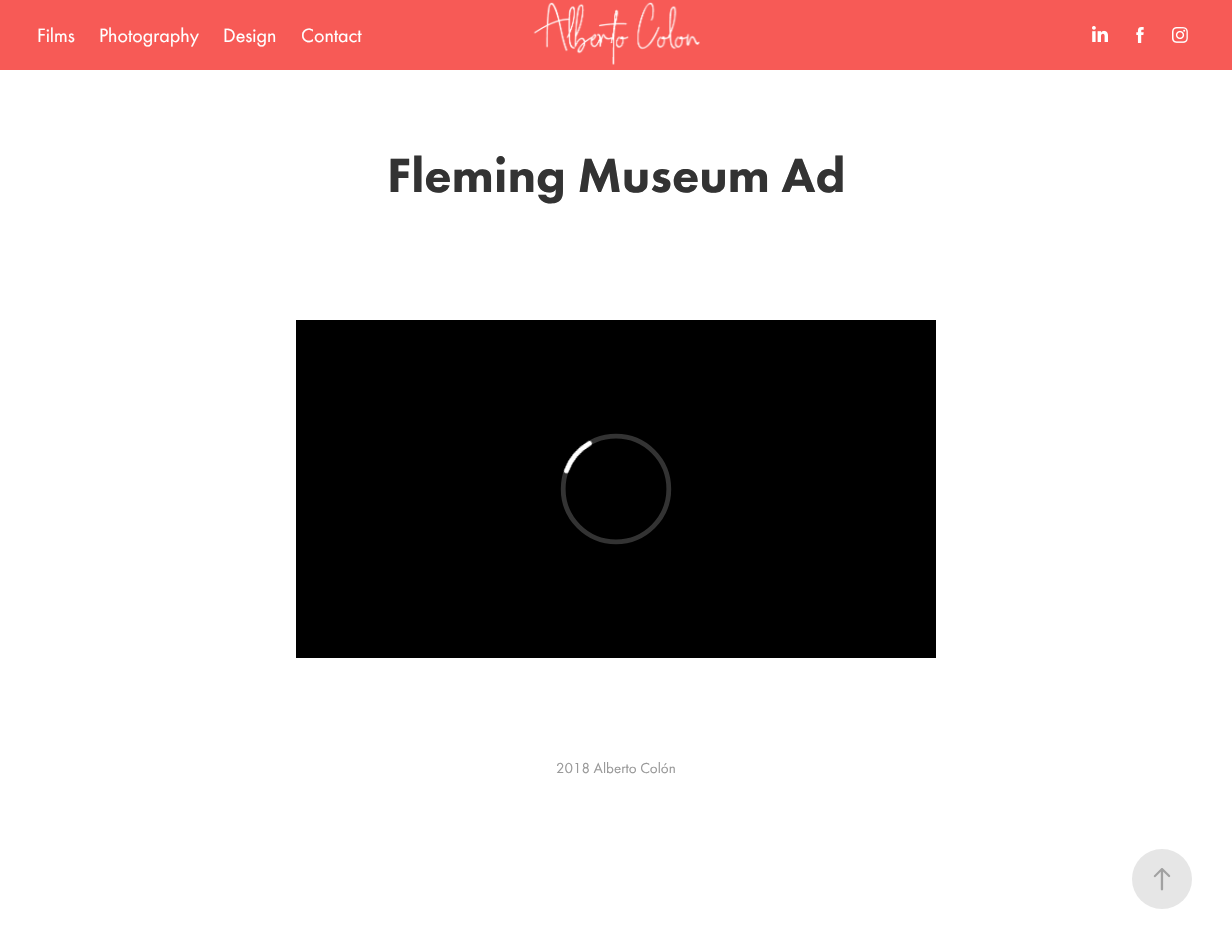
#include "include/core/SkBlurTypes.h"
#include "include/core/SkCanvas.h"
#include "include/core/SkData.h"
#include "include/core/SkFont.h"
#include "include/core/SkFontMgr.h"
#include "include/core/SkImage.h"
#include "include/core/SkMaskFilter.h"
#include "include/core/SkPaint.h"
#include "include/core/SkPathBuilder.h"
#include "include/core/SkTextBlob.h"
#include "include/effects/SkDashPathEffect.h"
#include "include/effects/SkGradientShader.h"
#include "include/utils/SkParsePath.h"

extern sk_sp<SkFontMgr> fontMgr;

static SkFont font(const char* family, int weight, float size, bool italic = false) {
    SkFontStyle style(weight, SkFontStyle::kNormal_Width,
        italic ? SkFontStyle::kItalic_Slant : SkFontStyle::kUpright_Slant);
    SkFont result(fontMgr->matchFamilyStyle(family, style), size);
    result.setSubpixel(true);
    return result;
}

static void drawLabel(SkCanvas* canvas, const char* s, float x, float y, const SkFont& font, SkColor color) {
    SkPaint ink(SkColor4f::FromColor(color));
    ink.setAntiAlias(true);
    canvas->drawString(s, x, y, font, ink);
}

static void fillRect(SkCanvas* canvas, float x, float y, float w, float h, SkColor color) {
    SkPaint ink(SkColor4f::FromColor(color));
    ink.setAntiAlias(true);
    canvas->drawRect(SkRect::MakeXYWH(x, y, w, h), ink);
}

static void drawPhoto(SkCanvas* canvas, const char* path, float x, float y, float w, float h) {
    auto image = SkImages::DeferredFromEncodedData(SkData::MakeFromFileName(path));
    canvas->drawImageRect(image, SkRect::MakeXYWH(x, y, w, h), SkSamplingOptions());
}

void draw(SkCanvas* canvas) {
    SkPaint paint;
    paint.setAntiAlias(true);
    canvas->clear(0xFFFFFFFF);
    fillRect(canvas, 0, 0, 1232, 70, 0xFFF75A56);
    SkFont font1 = font("Futura PT", 400, 20);
    drawLabel(canvas, "Films", 37, 42, font1, 0xFFFFFFFF);
    drawLabel(canvas, "Photography", 99, 42, font1, 0xFFFFFFFF);
    drawLabel(canvas, "Design", 223, 42, font1, 0xFFFFFFFF);
    drawLabel(canvas, "Contact", 301, 42, font1, 0xFFFFFFFF);
    drawPhoto(canvas, "assets/img1.png", 533, 2, 167, 63);
    drawPhoto(canvas, "assets/img2.png", 1092, 26, 16, 16);
    drawPhoto(canvas, "assets/img3.png", 1136, 27, 8, 16);
    drawPhoto(canvas, "assets/img4.png", 1172, 27, 16, 16);
    SkFont font2 = font("Futura PT", 900, 50);
    drawLabel(canvas, "Fleming Museum Ad", 387, 192, font2, 0xFF333333);
    drawPhoto(canvas, "assets/img5.png", 296, 320, 640, 338);
    paint.setColor(0xFFE6E6E6);
    canvas->drawCircle(1162, 879, 30, paint);
    drawPhoto(canvas, "assets/img6.png", 1153, 868, 18, 23);
    SkFont font3 = font("Futura PT", 400, 15);
    drawLabel(canvas, "2018 Alberto Colón", 556, 773, font3, 0xFF999999);
}
